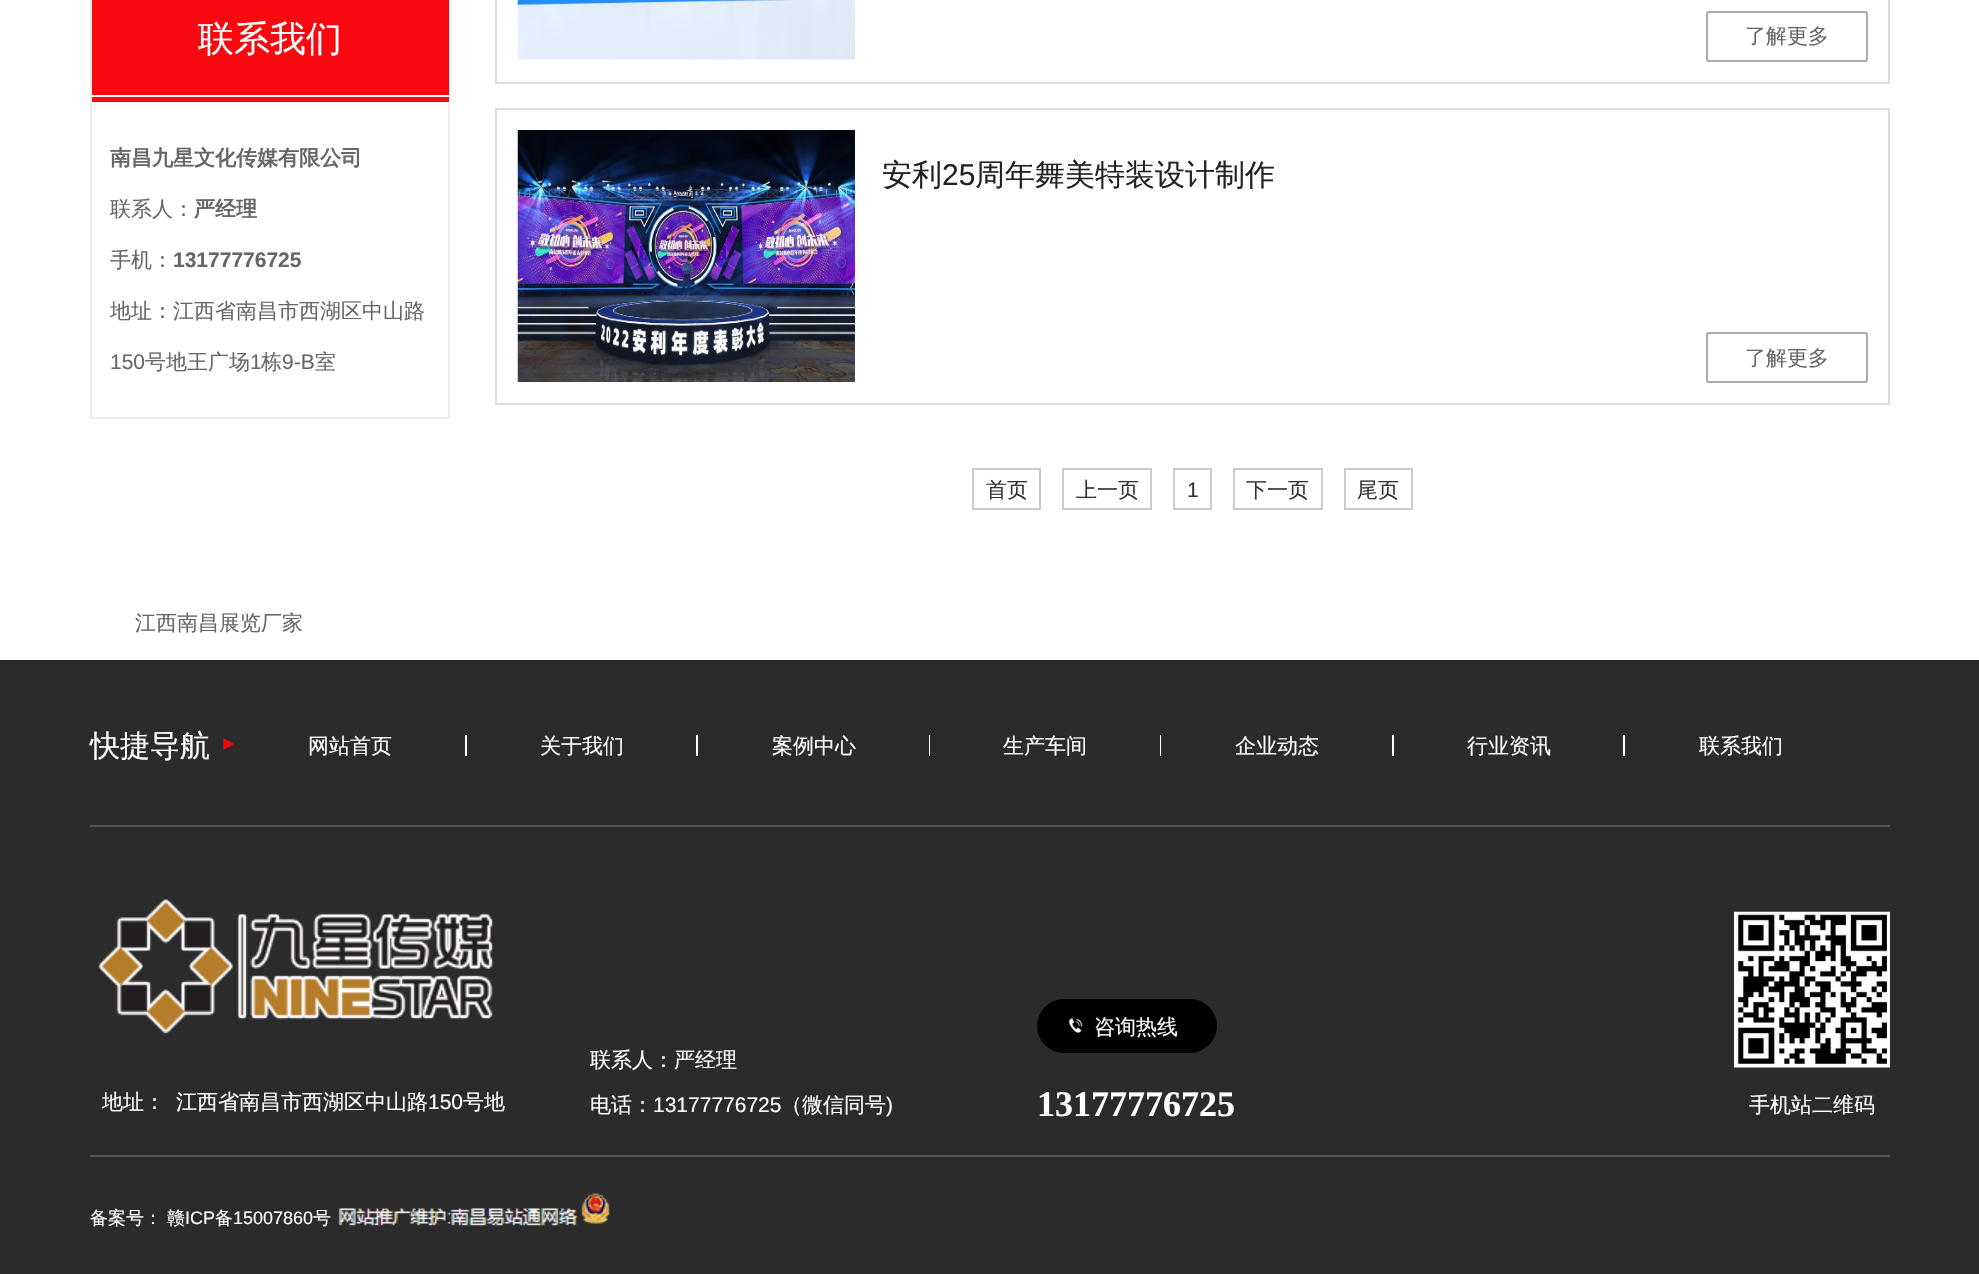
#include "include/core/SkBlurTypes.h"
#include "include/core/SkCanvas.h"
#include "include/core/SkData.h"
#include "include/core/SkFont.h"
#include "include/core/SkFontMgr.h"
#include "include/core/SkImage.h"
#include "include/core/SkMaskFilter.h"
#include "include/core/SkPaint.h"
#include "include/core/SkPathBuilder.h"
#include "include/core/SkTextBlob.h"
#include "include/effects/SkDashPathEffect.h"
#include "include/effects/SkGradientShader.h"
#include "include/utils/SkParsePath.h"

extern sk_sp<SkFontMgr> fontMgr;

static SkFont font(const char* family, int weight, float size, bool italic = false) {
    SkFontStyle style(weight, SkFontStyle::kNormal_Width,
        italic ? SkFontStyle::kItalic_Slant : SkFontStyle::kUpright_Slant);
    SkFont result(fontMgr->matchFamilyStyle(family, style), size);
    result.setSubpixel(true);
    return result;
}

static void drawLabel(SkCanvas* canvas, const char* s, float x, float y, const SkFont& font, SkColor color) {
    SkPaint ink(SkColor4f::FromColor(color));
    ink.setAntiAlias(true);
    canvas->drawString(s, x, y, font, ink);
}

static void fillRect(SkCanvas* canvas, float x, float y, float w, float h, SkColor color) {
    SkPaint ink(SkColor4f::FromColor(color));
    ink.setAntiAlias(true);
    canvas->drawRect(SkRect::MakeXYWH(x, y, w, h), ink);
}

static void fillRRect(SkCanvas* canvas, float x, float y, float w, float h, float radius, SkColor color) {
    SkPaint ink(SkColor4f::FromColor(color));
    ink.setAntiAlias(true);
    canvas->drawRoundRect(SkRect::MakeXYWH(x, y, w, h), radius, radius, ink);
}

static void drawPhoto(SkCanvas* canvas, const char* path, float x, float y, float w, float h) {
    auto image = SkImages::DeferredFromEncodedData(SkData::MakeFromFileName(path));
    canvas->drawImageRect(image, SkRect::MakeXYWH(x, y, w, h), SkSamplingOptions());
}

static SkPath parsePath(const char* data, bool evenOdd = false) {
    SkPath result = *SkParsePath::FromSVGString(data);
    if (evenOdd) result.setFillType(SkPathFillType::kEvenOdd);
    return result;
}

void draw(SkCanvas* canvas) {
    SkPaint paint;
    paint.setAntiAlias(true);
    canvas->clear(0xFFFFFFFF);
    paint.setStroke(true);
    paint.setStrokeWidth(2);
    paint.setColor(0xFFEEEEEE);
    canvas->drawRect(SkRect::MakeXYWH(91, -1, 358, 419), paint);
    fillRect(canvas, 92, 0, 357, 102, 0xFFF90810);
    fillRect(canvas, 92, 95, 357, 2, 0xFFFFFFFF);
    SkFont font1 = font("WenQuanYi Zen Hei", 500, 36);
    drawLabel(canvas, "联系我们", 198, 51, font1, 0xFFFFFFFF);
    SkFont font2 = font("WenQuanYi Zen Hei", 700, 21);
    drawLabel(canvas, "南昌九星文化传媒有限公司", 110, 165, font2, 0xFF666666);
    SkFont font3 = font("WenQuanYi Zen Hei", 500, 21);
    drawLabel(canvas, "联系人：", 110, 216, font3, 0xFF666666);
    drawLabel(canvas, "严经理", 194, 216, font2, 0xFF666666);
    drawLabel(canvas, "手机：", 110, 267, font3, 0xFF666666);
    SkFont font4 = font("Liberation Sans", 700, 21);
    drawLabel(canvas, "13177776725", 173, 267, font4, 0xFF666666);
    drawLabel(canvas, "地址：江西省南昌市西湖区中山路", 110, 318, font3, 0xFF666666);
    SkFont font5 = font("Liberation Sans", 400, 21);
    drawLabel(canvas, "150", 110, 369, font5, 0xFF666666);
    drawLabel(canvas, "号地王广场", 145, 369, font3, 0xFF666666);
    drawLabel(canvas, "1", 250, 369, font5, 0xFF666666);
    drawLabel(canvas, "栋", 261, 369, font3, 0xFF666666);
    drawLabel(canvas, "9-B", 282, 369, font5, 0xFF666666);
    drawLabel(canvas, "室", 315, 369, font3, 0xFF666666);
    paint.setColor(0xFFDEDEDE);
    canvas->drawRect(SkRect::MakeXYWH(496, -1, 1393, 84), paint);
    drawPhoto(canvas, "assets/img1.png", 517, 0, 338, 60);
    paint.setColor(0xFFAAAAAA);
    canvas->drawRoundRect(SkRect::MakeXYWH(1707, 12, 160, 49), 2, 2, paint);
    drawLabel(canvas, "了解更多", 1745, 43, font3, 0xFF666666);
    paint.setColor(0xFFDEDEDE);
    canvas->drawRect(SkRect::MakeXYWH(496, 109, 1393, 295), paint);
    drawPhoto(canvas, "assets/img2.png", 517, 130, 338, 252);
    SkFont font6 = font("WenQuanYi Zen Hei", 500, 30);
    drawLabel(canvas, "安利", 882, 185, font6, 0xFF222222);
    SkFont font7 = font("Liberation Sans", 400, 30);
    drawLabel(canvas, "25", 942, 185, font7, 0xFF222222);
    drawLabel(canvas, "周年舞美特装设计制作", 975, 185, font6, 0xFF222222);
    paint.setColor(0xFFAAAAAA);
    canvas->drawRoundRect(SkRect::MakeXYWH(1707, 333, 160, 49), 2, 2, paint);
    drawLabel(canvas, "了解更多", 1745, 365, font3, 0xFF666666);
    paint.setColor(0xFFCBCBCB);
    canvas->drawRect(SkRect::MakeXYWH(973, 469, 67, 40), paint);
    drawLabel(canvas, "首页", 986, 497, font3, 0xFF333333);
    canvas->drawRect(SkRect::MakeXYWH(1063, 469, 88, 40), paint);
    drawLabel(canvas, "上一页", 1076, 497, font3, 0xFF333333);
    canvas->drawRect(SkRect::MakeXYWH(1174, 469, 37, 40), paint);
    drawLabel(canvas, "1", 1187, 497, font5, 0xFF333333);
    canvas->drawRect(SkRect::MakeXYWH(1234, 469, 88, 40), paint);
    drawLabel(canvas, "下一页", 1246, 497, font3, 0xFF333333);
    canvas->drawRect(SkRect::MakeXYWH(1345, 469, 67, 40), paint);
    drawLabel(canvas, "尾页", 1357, 497, font3, 0xFF333333);
    drawLabel(canvas, "江西南昌展览厂家", 135, 630, font3, 0xFF666666);
    fillRect(canvas, 0, 660, 1979, 614, 0xFF2B2B2B);
    fillRect(canvas, 90, 825, 1800, 2, 0xFF555555);
    drawLabel(canvas, "快捷导航", 90, 756, font6, 0xFFFFFFFF);
    paint.setStroke(false);
    paint.setColor(0xFFF90810);
    canvas->drawPath(parsePath("M223.5 750V738L234 744Z"), paint);
    drawLabel(canvas, "网站首页", 308, 753, font3, 0xFFFFFFFF);
    fillRect(canvas, 465, 735, 2, 21, 0xFFFFFFFF);
    drawLabel(canvas, "关于我们", 540, 753, font3, 0xFFFFFFFF);
    fillRect(canvas, 696, 735, 2, 21, 0xFFFFFFFF);
    drawLabel(canvas, "案例中心", 772, 753, font3, 0xFFFFFFFF);
    fillRect(canvas, 929, 735, 1, 21, 0xFFFFFFFF);
    drawLabel(canvas, "生产车间", 1003, 753, font3, 0xFFFFFFFF);
    fillRect(canvas, 1160, 735, 1, 21, 0xFFFFFFFF);
    drawLabel(canvas, "企业动态", 1235, 753, font3, 0xFFFFFFFF);
    fillRect(canvas, 1392, 735, 2, 21, 0xFFFFFFFF);
    drawLabel(canvas, "行业资讯", 1467, 753, font3, 0xFFFFFFFF);
    fillRect(canvas, 1623, 735, 2, 21, 0xFFFFFFFF);
    drawLabel(canvas, "联系我们", 1699, 753, font3, 0xFFFFFFFF);
    drawPhoto(canvas, "assets/img3.png", 98, 899, 395, 135);
    drawLabel(canvas, "地址：", 102, 1109, font3, 0xFFFFFFFF);
    drawLabel(canvas, "江西省南昌市西湖区中山路", 176, 1109, font3, 0xFFFFFFFF);
    drawLabel(canvas, "150", 428, 1109, font5, 0xFFFFFFFF);
    drawLabel(canvas, "号地", 463, 1109, font3, 0xFFFFFFFF);
    canvas->save();
    canvas->clipRect(SkRect::MakeXYWH(590, 1037, 447, 45));
    drawLabel(canvas, "联系人：", 590, 1067, font3, 0xFFFFFFFF);
    canvas->restore();
    drawLabel(canvas, "严经理", 674, 1067, font3, 0xFFFFFFFF);
    drawLabel(canvas, "电话：", 590, 1112, font3, 0xFFFFFFFF);
    drawLabel(canvas, "13177776725", 653, 1112, font5, 0xFFFFFFFF);
    drawLabel(canvas, "（微信同号", 781, 1112, font3, 0xFFFFFFFF);
    drawLabel(canvas, ")", 886, 1112, font5, 0xFFFFFFFF);
    fillRRect(canvas, 1037, 999, 180, 54, 27, 0xFF010101);
    drawPhoto(canvas, "assets/img4.png", 1068, 1018, 15, 15);
    drawLabel(canvas, "咨询热线", 1094, 1034, font3, 0xFFFFFFFF);
    SkFont font8 = font("Liberation Serif", 700, 36);
    drawLabel(canvas, "13177776725", 1037, 1116, font8, 0xFFFFFFFF);
    drawPhoto(canvas, "assets/img5.png", 1510, 912, 155, 155);
    drawPhoto(canvas, "assets/img6.png", 1734, 911, 156, 157);
    drawLabel(canvas, "手机站二维码", 1749, 1112, font3, 0xFFFFFFFF);
    fillRect(canvas, 90, 1155, 1800, 2, 0xFF555555);
    SkFont font9 = font("WenQuanYi Zen Hei", 500, 18);
    drawLabel(canvas, "备案号：", 90, 1224, font9, 0xFFFFFFFF);
    drawLabel(canvas, "赣", 167, 1224, font9, 0xFFFFFFFF);
    SkFont font10 = font("Liberation Sans", 400, 18);
    drawLabel(canvas, "ICP", 185, 1224, font10, 0xFFFFFFFF);
    drawLabel(canvas, "备", 215, 1224, font9, 0xFFFFFFFF);
    drawLabel(canvas, "15007860", 233, 1224, font10, 0xFFFFFFFF);
    drawLabel(canvas, "号", 313, 1224, font9, 0xFFFFFFFF);
    drawPhoto(canvas, "assets/img7.png", 338, 1208, 240, 18);
    drawPhoto(canvas, "assets/img8.png", 581, 1193, 29, 31);
}
